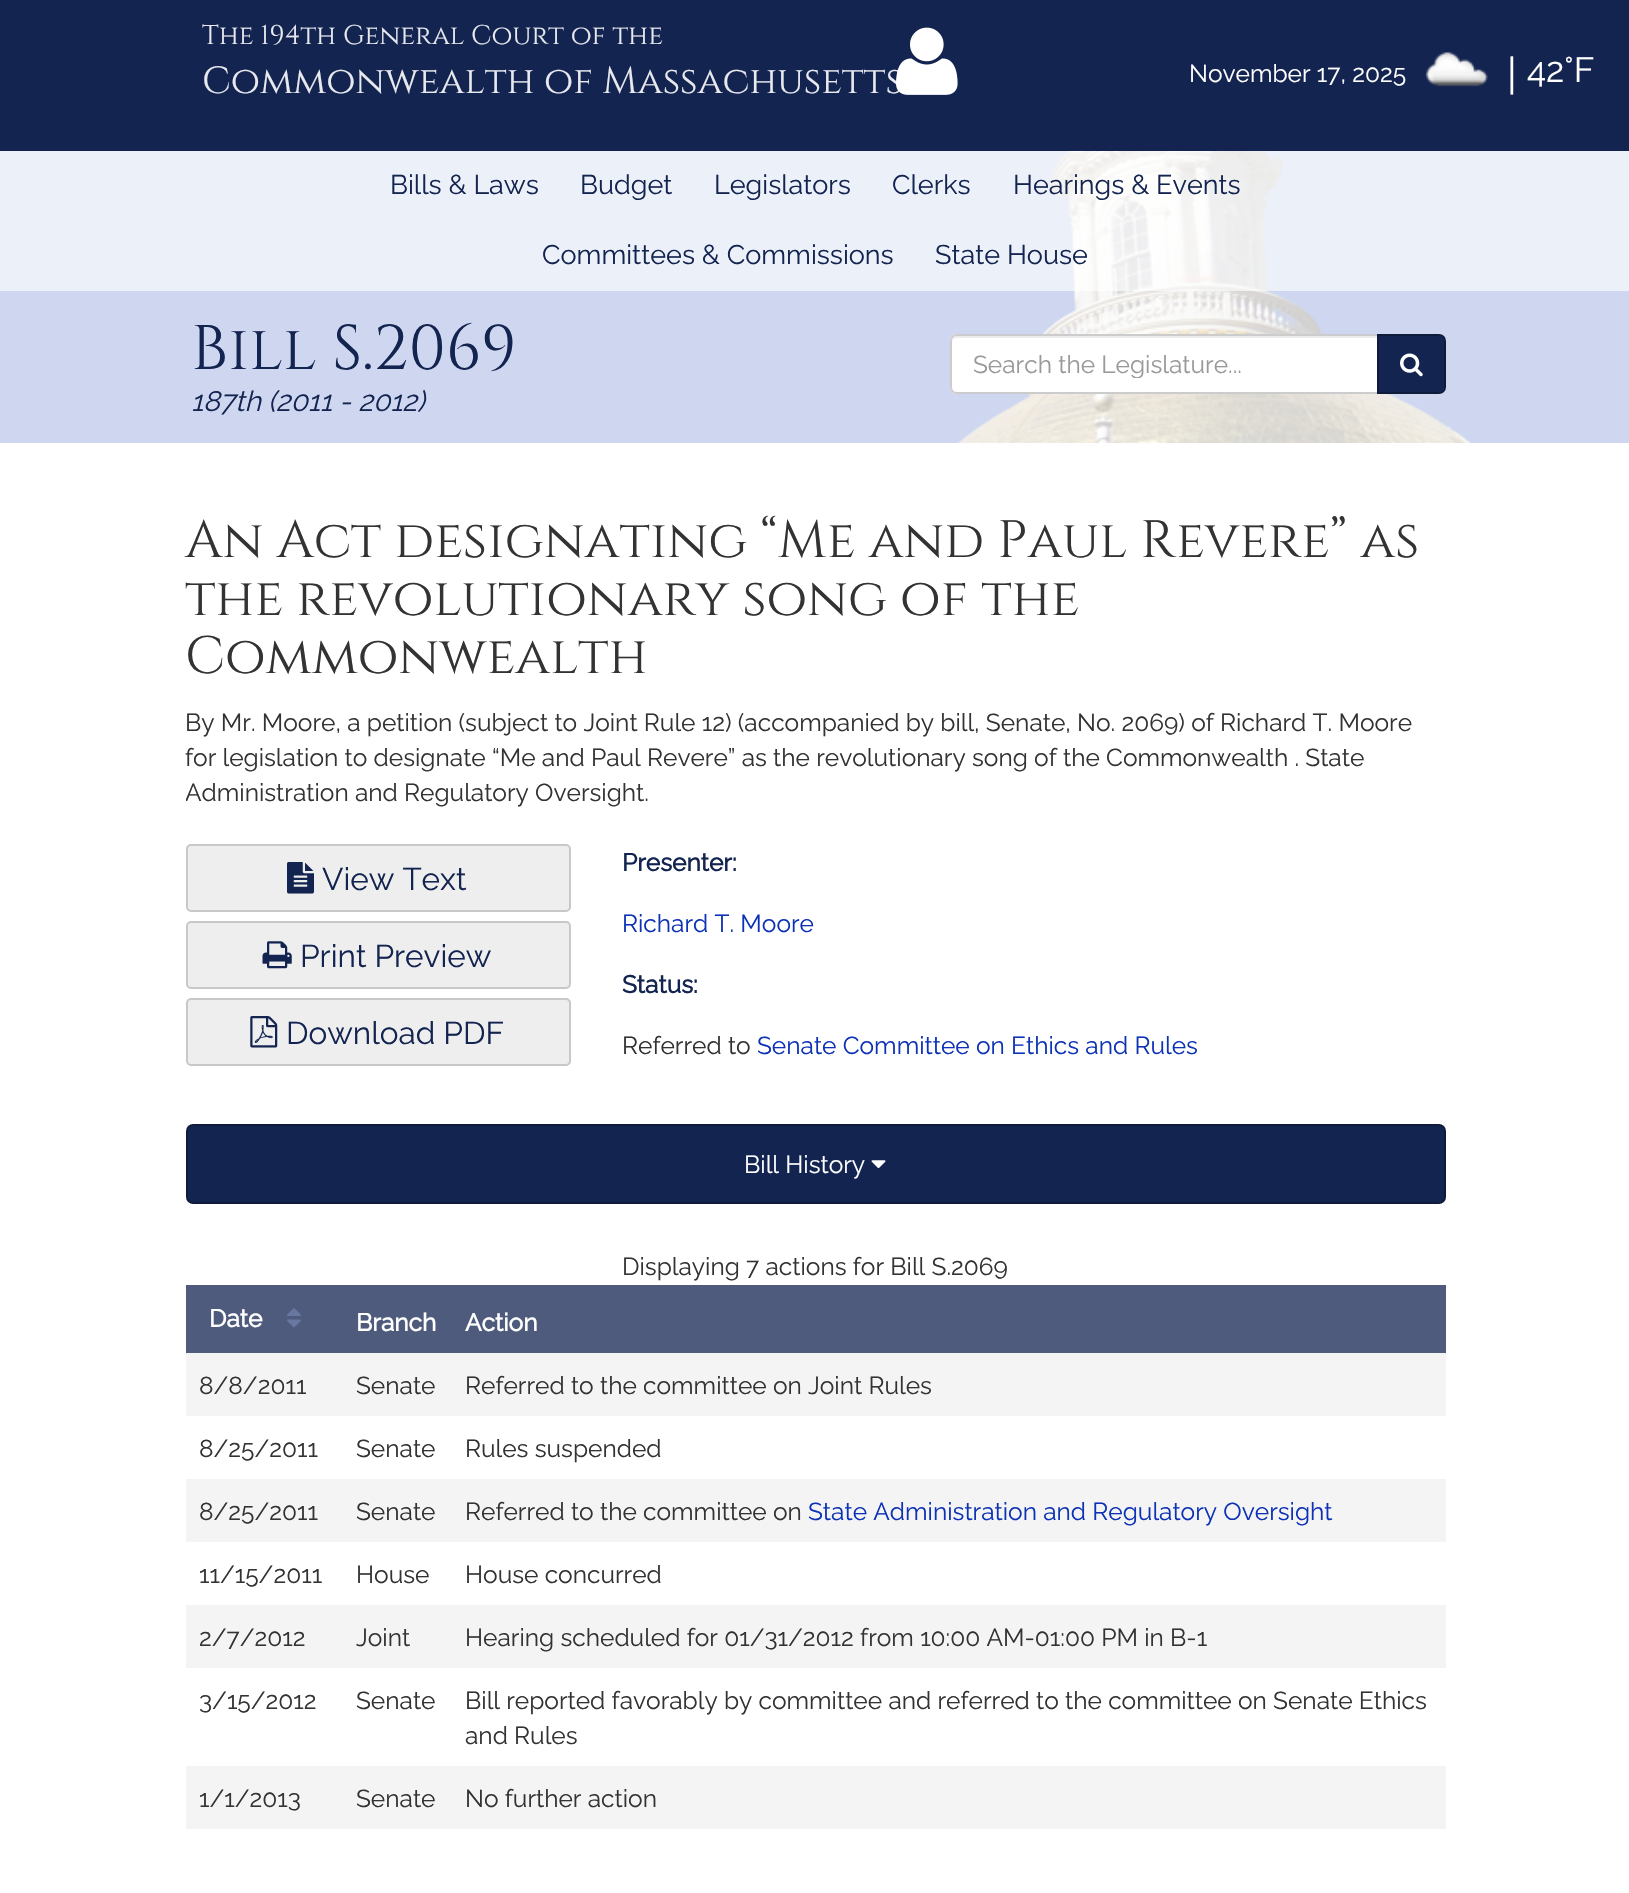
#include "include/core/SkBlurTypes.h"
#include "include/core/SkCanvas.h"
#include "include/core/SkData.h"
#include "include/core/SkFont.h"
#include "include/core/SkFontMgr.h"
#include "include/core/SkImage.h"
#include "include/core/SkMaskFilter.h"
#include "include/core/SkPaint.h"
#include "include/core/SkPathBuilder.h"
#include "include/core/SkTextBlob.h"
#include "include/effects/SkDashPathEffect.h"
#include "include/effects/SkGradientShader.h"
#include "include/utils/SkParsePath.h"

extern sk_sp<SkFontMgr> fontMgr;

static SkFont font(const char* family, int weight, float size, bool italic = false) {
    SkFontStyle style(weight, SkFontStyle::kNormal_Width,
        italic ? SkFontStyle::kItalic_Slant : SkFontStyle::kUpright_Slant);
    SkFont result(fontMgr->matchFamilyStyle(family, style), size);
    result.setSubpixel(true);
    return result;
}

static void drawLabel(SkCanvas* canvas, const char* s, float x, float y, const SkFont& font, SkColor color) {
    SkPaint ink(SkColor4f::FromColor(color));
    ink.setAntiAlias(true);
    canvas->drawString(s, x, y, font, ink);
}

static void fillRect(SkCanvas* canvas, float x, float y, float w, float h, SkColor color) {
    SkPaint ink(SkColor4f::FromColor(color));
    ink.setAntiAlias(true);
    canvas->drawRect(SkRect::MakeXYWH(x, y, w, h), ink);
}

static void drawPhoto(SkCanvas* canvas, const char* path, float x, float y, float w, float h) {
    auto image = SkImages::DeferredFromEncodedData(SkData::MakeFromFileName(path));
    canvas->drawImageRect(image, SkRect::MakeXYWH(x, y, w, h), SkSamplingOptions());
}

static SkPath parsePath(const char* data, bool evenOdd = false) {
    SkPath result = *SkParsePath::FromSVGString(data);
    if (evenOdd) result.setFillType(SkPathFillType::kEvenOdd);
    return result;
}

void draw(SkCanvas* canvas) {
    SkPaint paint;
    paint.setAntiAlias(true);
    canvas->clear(0xFFFFFFFF);
    drawPhoto(canvas, "assets/img1.png", 0, 151, 1629, 292);
    fillRect(canvas, 0, 0, 1629, 151, 0xFF132450);
    SkFont font1 = font("Cinzel", 400, 27);
    drawLabel(canvas, "The 194th General Court of the", 202, 44, font1, 0xFFE7E9EE);
    SkFont font2 = font("Cinzel", 400, 37.75f);
    drawLabel(canvas, "Commonwealth of Massachusetts", 202, 93, font2, 0xFFE7E9EE);
    drawPhoto(canvas, "assets/img2.png", 896, 27, 62, 68);
    SkFont font3 = font("Raleway", 100, 24.5f);
    drawLabel(canvas, "November 17, 2025", 1189, 82, font3, 0xFFFFFFFF);
    drawPhoto(canvas, "assets/img3.png", 1425, 52, 63, 35);
    SkFont font4 = font("Raleway", 100, 42);
    drawLabel(canvas, "|", 1507, 89, font4, 0xFFFFFFFF);
    SkFont font5 = font("Raleway", 100, 35);
    drawLabel(canvas, "42°F", 1527, 82, font5, 0xFFFFFFFF);
    fillRect(canvas, 0, 151, 1629, 140, 0xE6FFFFFF);
    SkFont font6 = font("Raleway", 100, 27);
    drawLabel(canvas, "Bills & Laws", 390, 194, font6, 0xFF132450);
    drawLabel(canvas, "Budget", 580, 194, font6, 0xFF132450);
    drawLabel(canvas, "Legislators", 714, 194, font6, 0xFF132450);
    drawLabel(canvas, "Clerks", 892, 194, font6, 0xFF132450);
    drawLabel(canvas, "Hearings & Events", 1013, 194, font6, 0xFF132450);
    drawLabel(canvas, "Committees & Commissions", 542, 264, font6, 0xFF132450);
    drawLabel(canvas, "State House", 935, 264, font6, 0xFF132450);
    fillRect(canvas, 0, 291, 1629, 152, 0xBFFFFFFF);
    SkFont font7 = font("Cinzel", 400, 63);
    drawLabel(canvas, "Bill S.2069", 191, 369, font7, 0xFF132450);
    SkFont font8 = font("Raleway", 100, 28.25f, true);
    drawLabel(canvas, "187th (2011 - 2012)", 191, 411, font8, 0xFF132450);
    paint.setColor(0xFFFFFFFF);
    canvas->drawPath(parsePath("M957 334H1379V394H957C953 394 950 391 950 387V341C950 337 953 334 957 334Z"), paint);
    paint.setColor(0xFFECECEC);
    canvas->drawPath(parsePath("M957 338H1377V336H957C953 336 952 340 952 343C952 340 954 338 957 338Z"), paint);
    paint.setStroke(true);
    paint.setStrokeWidth(2);
    paint.setColor(0xFFCCCCCC);
    canvas->drawPath(parsePath("M957 335H1378V393H957C953.5 393 951 390.5 951 387V341C951 337.5 953.5 335 957 335Z"), paint);
    canvas->save();
    canvas->clipRect(SkRect::MakeXYWH(973, 350, 376, 28));
    drawLabel(canvas, "Search the Legislature...", 973, 373, font3, 0xFF999999);
    canvas->restore();
    paint.setStroke(false);
    paint.setColor(0xFF132450);
    canvas->drawPath(parsePath("M1378 335H1439C1442.5 335 1445 337.5 1445 341V387C1445 390.5 1442.5 393 1439 393H1378Z"), paint);
    paint.setStroke(true);
    paint.setColor(0xFF0E1B3B);
    canvas->drawPath(parsePath("M1378 335H1439C1442.5 335 1445 337.5 1445 341V387C1445 390.5 1442.5 393 1439 393H1378Z"), paint);
    drawPhoto(canvas, "assets/img4.png", 1400, 353, 23, 24);
    SkFont font9 = font("Cinzel", 400, 52.5f);
    drawLabel(canvas, "An Act designating “Me and Paul Revere” as", 185, 557, font9, 0xFF333333);
    drawLabel(canvas, "the revolutionary song of the", 185, 615, font9, 0xFF333333);
    drawLabel(canvas, "Commonwealth", 185, 673, font9, 0xFF333333);
    drawLabel(canvas, "By Mr. Moore, a petition (subject to Joint Rule 12) (accompanied by bill, Senate, No. 2069) of Richard T. Moore", 185, 731, font3, 0xFF333333);
    drawLabel(canvas, "for legislation to designate “Me and Paul Revere” as the revolutionary song of the Commonwealth . State", 185, 766, font3, 0xFF333333);
    canvas->save();
    canvas->clipRect(SkRect::MakeXYWH(186, 704, 1260, 105));
    drawLabel(canvas, "Administration and Regulatory Oversight.", 185, 801, font3, 0xFF333333);
    canvas->restore();
    paint.setStroke(false);
    paint.setColor(0xFFEEEEEE);
    canvas->drawRoundRect(SkRect::MakeXYWH(187, 845, 383, 66), 4, 4, paint);
    paint.setStroke(true);
    paint.setColor(0xFFC8C8C8);
    canvas->drawRoundRect(SkRect::MakeXYWH(187, 845, 383, 66), 4, 4, paint);
    drawPhoto(canvas, "assets/img5.png", 287, 862, 27, 32);
    SkFont font10 = font("Raleway", 100, 31.5f);
    drawLabel(canvas, "View Text", 322, 890, font10, 0xFF132450);
    paint.setStroke(false);
    paint.setColor(0xFFEEEEEE);
    canvas->drawRoundRect(SkRect::MakeXYWH(187, 922, 383, 66), 4, 4, paint);
    paint.setStroke(true);
    paint.setColor(0xFFC8C8C8);
    canvas->drawRoundRect(SkRect::MakeXYWH(187, 922, 383, 66), 4, 4, paint);
    drawPhoto(canvas, "assets/img6.png", 262, 941, 30, 28);
    drawLabel(canvas, "Print Preview", 300, 967, font10, 0xFF132450);
    paint.setStroke(false);
    paint.setColor(0xFFEEEEEE);
    canvas->drawRoundRect(SkRect::MakeXYWH(187, 999, 383, 66), 4, 4, paint);
    paint.setStroke(true);
    paint.setColor(0xFFC8C8C8);
    canvas->drawRoundRect(SkRect::MakeXYWH(187, 999, 383, 66), 4, 4, paint);
    drawPhoto(canvas, "assets/img7.png", 250, 1016, 28, 32);
    drawLabel(canvas, "Download PDF", 286, 1044, font10, 0xFF132450);
    SkFont font11 = font("Raleway", 700, 24.5f);
    drawLabel(canvas, "Presenter:", 622, 871, font11, 0xFF132450);
    drawLabel(canvas, "Richard T. Moore", 622, 932, font3, 0xFF0D32B6);
    drawLabel(canvas, "Status:", 622, 993, font11, 0xFF132450);
    drawLabel(canvas, "Referred to", 622, 1054, font3, 0xFF333333);
    drawLabel(canvas, "Senate Committee on Ethics and Rules", 757, 1054, font3, 0xFF0D32B6);
    paint.setStroke(false);
    paint.setColor(0xFF132450);
    canvas->drawRoundRect(SkRect::MakeXYWH(187, 1125, 1258, 78), 6, 6, paint);
    paint.setStroke(true);
    paint.setColor(0xFF0E1B3B);
    canvas->drawRoundRect(SkRect::MakeXYWH(187, 1125, 1258, 78), 6, 6, paint);
    drawLabel(canvas, "Bill History", 744, 1173, font3, 0xFFFFFFFF);
    drawPhoto(canvas, "assets/img8.png", 871, 1160, 15, 9);
    drawLabel(canvas, "Displaying 7 actions for Bill S.2069", 622, 1275, font3, 0xFF333333);
    fillRect(canvas, 186, 1285, 1260, 68, 0xFF4E5B7C);
    drawLabel(canvas, "Date", 209, 1327, font11, 0xFFFFFFFF);
    drawPhoto(canvas, "assets/img9.png", 287, 1308, 14, 20);
    drawLabel(canvas, "Branch", 356, 1331, font11, 0xFFFFFFFF);
    drawLabel(canvas, "Action", 465, 1331, font11, 0xFFFFFFFF);
    fillRect(canvas, 186, 1353, 1260, 63, 0xFFF4F4F4);
    drawLabel(canvas, "8/8/2011", 199, 1394, font3, 0xFF333333);
    drawLabel(canvas, "Senate", 356, 1394, font3, 0xFF333333);
    drawLabel(canvas, "Referred to the committee on Joint Rules", 465, 1394, font3, 0xFF333333);
    drawLabel(canvas, "8/25/2011", 199, 1457, font3, 0xFF333333);
    drawLabel(canvas, "Senate", 356, 1457, font3, 0xFF333333);
    drawLabel(canvas, "Rules suspended", 465, 1457, font3, 0xFF333333);
    fillRect(canvas, 186, 1479, 1260, 63, 0xFFF4F4F4);
    drawLabel(canvas, "8/25/2011", 199, 1520, font3, 0xFF333333);
    drawLabel(canvas, "Senate", 356, 1520, font3, 0xFF333333);
    drawLabel(canvas, "Referred to the committee on", 465, 1520, font3, 0xFF333333);
    drawLabel(canvas, "State Administration and Regulatory Oversight", 808, 1520, font3, 0xFF0D32B6);
    drawLabel(canvas, "11/15/2011", 199, 1583, font3, 0xFF333333);
    drawLabel(canvas, "House", 356, 1583, font3, 0xFF333333);
    drawLabel(canvas, "House concurred", 465, 1583, font3, 0xFF333333);
    fillRect(canvas, 186, 1605, 1260, 63, 0xFFF4F4F4);
    drawLabel(canvas, "2/7/2012", 199, 1646, font3, 0xFF333333);
    drawLabel(canvas, "Joint", 356, 1646, font3, 0xFF333333);
    drawLabel(canvas, "Hearing scheduled for 01/31/2012 from 10:00 AM-01:00 PM in B-1", 465, 1646, font3, 0xFF333333);
    drawLabel(canvas, "3/15/2012", 199, 1709, font3, 0xFF333333);
    drawLabel(canvas, "Senate", 356, 1709, font3, 0xFF333333);
    drawLabel(canvas, "Bill reported favorably by committee and referred to the committee on Senate Ethics", 465, 1709, font3, 0xFF333333);
    drawLabel(canvas, "and Rules", 465, 1744, font3, 0xFF333333);
    fillRect(canvas, 186, 1766, 1260, 63, 0xFFF4F4F4);
    drawLabel(canvas, "1/1/2013", 199, 1807, font3, 0xFF333333);
    drawLabel(canvas, "Senate", 356, 1807, font3, 0xFF333333);
    drawLabel(canvas, "No further action", 465, 1807, font3, 0xFF333333);
}
